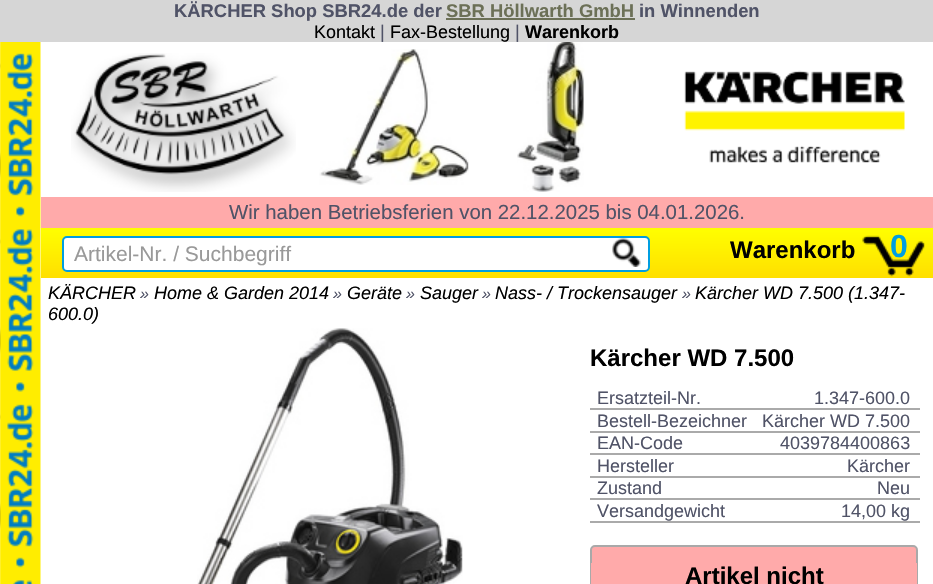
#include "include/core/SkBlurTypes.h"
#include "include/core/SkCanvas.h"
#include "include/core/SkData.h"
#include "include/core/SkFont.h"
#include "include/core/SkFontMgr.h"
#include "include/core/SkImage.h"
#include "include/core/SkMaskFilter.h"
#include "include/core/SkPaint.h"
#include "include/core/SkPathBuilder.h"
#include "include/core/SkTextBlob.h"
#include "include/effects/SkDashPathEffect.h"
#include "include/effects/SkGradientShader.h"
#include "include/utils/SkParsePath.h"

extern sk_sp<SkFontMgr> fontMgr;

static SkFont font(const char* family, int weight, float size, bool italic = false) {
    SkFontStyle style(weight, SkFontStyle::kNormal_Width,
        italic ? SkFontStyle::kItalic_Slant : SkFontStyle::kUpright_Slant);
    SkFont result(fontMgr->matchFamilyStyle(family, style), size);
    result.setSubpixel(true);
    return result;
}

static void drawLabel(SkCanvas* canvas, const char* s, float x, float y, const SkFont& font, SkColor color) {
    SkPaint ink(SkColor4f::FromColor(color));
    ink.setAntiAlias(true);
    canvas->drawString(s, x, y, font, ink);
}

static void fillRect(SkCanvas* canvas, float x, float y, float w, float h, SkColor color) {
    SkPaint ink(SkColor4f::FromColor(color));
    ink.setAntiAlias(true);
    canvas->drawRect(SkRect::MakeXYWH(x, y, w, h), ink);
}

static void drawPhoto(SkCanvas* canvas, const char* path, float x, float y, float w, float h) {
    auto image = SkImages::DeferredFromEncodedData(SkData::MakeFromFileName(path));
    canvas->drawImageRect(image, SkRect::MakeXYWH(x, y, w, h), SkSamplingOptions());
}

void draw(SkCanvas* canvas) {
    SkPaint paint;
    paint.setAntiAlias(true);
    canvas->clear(0xFFD6D6D6);
    SkFont font1 = font("Liberation Sans", 700, 18.4f);
    drawLabel(canvas, "KÄRCHER Shop SBR24.de der", 174, 17, font1, 0xFF505367);
    drawLabel(canvas, "SBR Höllwarth GmbH", 446, 17, font1, 0xFF6C7057);
    fillRect(canvas, 446, 18, 189, 2, 0xFF6C7057);
    drawLabel(canvas, "in Winnenden", 639, 17, font1, 0xFF505367);
    SkFont font2 = font("Liberation Sans", 400, 18);
    drawLabel(canvas, "Kontakt", 314, 38, font2, 0xFF000000);
    SkFont font3 = font("Liberation Sans", 400, 18.4f);
    drawLabel(canvas, "|", 380, 38, font3, 0xFF505367);
    drawLabel(canvas, "Fax-Bestellung", 390, 38, font2, 0xFF000000);
    drawLabel(canvas, "|", 515, 38, font3, 0xFF505367);
    SkFont font4 = font("Liberation Sans", 700, 18);
    drawLabel(canvas, "Warenkorb", 525, 38, font4, 0xFF000000);
    fillRect(canvas, 0, 42, 933, 542, 0xFFFFFFFF);
    drawPhoto(canvas, "assets/img1.png", 0, 42, 41, 542);
    drawPhoto(canvas, "assets/img2.png", 71, 53, 225, 139);
    drawPhoto(canvas, "assets/img3.png", 319, 49, 150, 136);
    drawPhoto(canvas, "assets/img4.png", 517, 42, 68, 150);
    drawPhoto(canvas, "assets/img5.png", 684, 70, 221, 93);
    fillRect(canvas, 41, 197, 892, 31, 0xFFFFAAAA);
    SkFont font5 = font("Liberation Sans", 400, 20.4f);
    drawLabel(canvas, "Wir haben Betriebsferien von 22.12.2025 bis 04.01.2026.", 229, 219, font5, 0xFF505367);
    {
        const SkColor colors[] = {0xFFFFFF00, 0xFFFFDF00};
        const float stops[] = {0, 1};
        const SkPoint ends[] = {{487, 228}, {487, 278}};
        paint.setShader(SkGradientShader::MakeLinear(ends, colors, stops, 2, SkTileMode::kClamp));
        paint.setAlpha(255);
    }
    canvas->drawRect(SkRect::MakeXYWH(41, 228, 892, 50), paint);
    paint.setShader(nullptr);
    paint.setColor(0xFFFFFFFF);
    canvas->drawRoundRect(SkRect::MakeXYWH(63, 237, 586, 34), 4, 4, paint);
    paint.setStroke(true);
    paint.setStrokeWidth(2);
    paint.setColor(0xFF009EE1);
    canvas->drawRoundRect(SkRect::MakeXYWH(63, 237, 586, 34), 4, 4, paint);
    SkFont font6 = font("Liberation Sans", 400, 21);
    drawLabel(canvas, "Artikel-Nr. / Suchbegriff", 74, 261, font6, 0xFF999999);
    drawPhoto(canvas, "assets/img6.png", 612, 238, 29, 29);
    drawPhoto(canvas, "assets/img7.png", 862, 235, 63, 42);
    SkFont font7 = font("Liberation Sans", 700, 32);
    drawLabel(canvas, "0", 890, 257, font7, 0xFF009EE1);
    SkFont font8 = font("Liberation Sans", 700, 24);
    drawLabel(canvas, "Warenkorb", 730, 258, font8, 0xFF000000);
    SkFont font9 = font("Liberation Sans", 400, 18, true);
    drawLabel(canvas, "KÄRCHER", 48, 299, font9, 0xFF000000);
    SkFont font10 = font("Liberation Sans", 400, 16, true);
    drawLabel(canvas, "»", 140, 299, font10, 0xFF505367);
    drawLabel(canvas, "Home & Garden 2014", 154, 299, font9, 0xFF000000);
    drawLabel(canvas, "»", 333, 299, font10, 0xFF505367);
    drawLabel(canvas, "Geräte", 347, 299, font9, 0xFF000000);
    drawLabel(canvas, "»", 406, 299, font10, 0xFF505367);
    drawLabel(canvas, "Sauger", 420, 299, font9, 0xFF000000);
    drawLabel(canvas, "»", 482, 299, font10, 0xFF505367);
    drawLabel(canvas, "Nass- / Trockensauger", 495, 299, font9, 0xFF000000);
    drawLabel(canvas, "»", 682, 299, font10, 0xFF505367);
    drawLabel(canvas, "Kärcher WD 7.500 (1.347-", 695, 299, font9, 0xFF000000);
    drawLabel(canvas, "600.0)", 48, 320, font9, 0xFF000000);
    drawPhoto(canvas, "assets/img8.png", 197, 328, 266, 256);
    drawLabel(canvas, "Kärcher WD 7.500", 590, 366, font8, 0xFF000000);
    drawLabel(canvas, "Ersatzteil-Nr.", 597, 404, font2, 0xFF505367);
    fillRect(canvas, 590, 408, 330, 2, 0xFFAAAAAA);
    drawLabel(canvas, "1.347-600.0", 814, 404, font2, 0xFF505367);
    drawLabel(canvas, "Bestell-Bezeichner", 597, 427, font2, 0xFF505367);
    fillRect(canvas, 590, 431, 330, 2, 0xFFAAAAAA);
    drawLabel(canvas, "Kärcher WD 7.500", 762, 427, font2, 0xFF505367);
    drawLabel(canvas, "EAN-Code", 597, 449, font2, 0xFF505367);
    fillRect(canvas, 590, 453, 330, 2, 0xFFAAAAAA);
    drawLabel(canvas, "4039784400863", 780, 449, font2, 0xFF505367);
    drawLabel(canvas, "Hersteller", 597, 472, font2, 0xFF505367);
    fillRect(canvas, 590, 476, 330, 2, 0xFFAAAAAA);
    drawLabel(canvas, "Kärcher", 847, 472, font2, 0xFF505367);
    drawLabel(canvas, "Zustand", 597, 494, font2, 0xFF505367);
    fillRect(canvas, 590, 498, 330, 2, 0xFFAAAAAA);
    drawLabel(canvas, "Neu", 877, 494, font2, 0xFF505367);
    drawLabel(canvas, "Versandgewicht", 597, 517, font2, 0xFF505367);
    fillRect(canvas, 590, 521, 330, 2, 0xFFAAAAAA);
    drawLabel(canvas, "14,00 kg", 841, 517, font2, 0xFF505367);
    paint.setStroke(false);
    paint.setColor(0xFFFFAAAA);
    canvas->drawRoundRect(SkRect::MakeXYWH(591, 546, 326, 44), 4, 4, paint);
    paint.setStroke(true);
    paint.setColor(0xFFA9A9A9);
    canvas->drawRoundRect(SkRect::MakeXYWH(591, 546, 326, 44), 4, 4, paint);
    fillRect(canvas, 591, 563, 326, 21, 0xFFFFAAAA);
    drawLabel(canvas, "Artikel nicht", 685, 584, font8, 0xFF000000);
}
